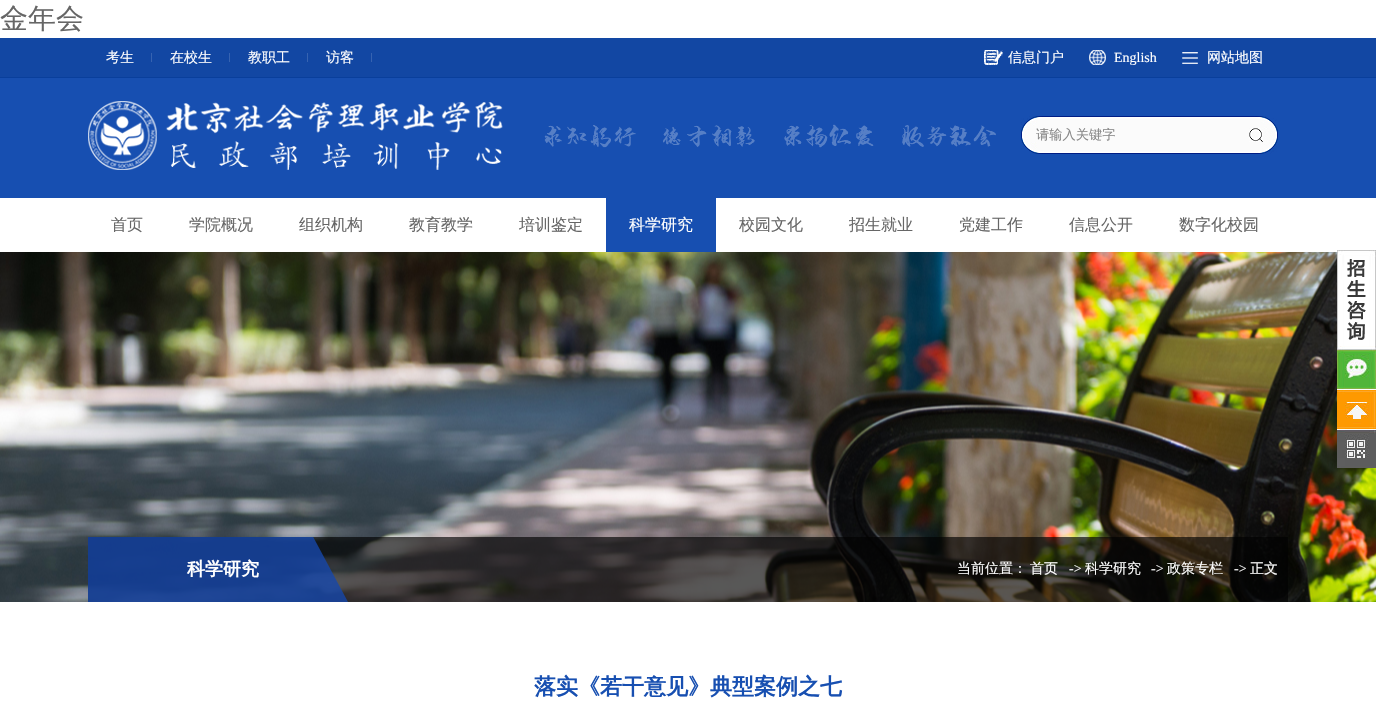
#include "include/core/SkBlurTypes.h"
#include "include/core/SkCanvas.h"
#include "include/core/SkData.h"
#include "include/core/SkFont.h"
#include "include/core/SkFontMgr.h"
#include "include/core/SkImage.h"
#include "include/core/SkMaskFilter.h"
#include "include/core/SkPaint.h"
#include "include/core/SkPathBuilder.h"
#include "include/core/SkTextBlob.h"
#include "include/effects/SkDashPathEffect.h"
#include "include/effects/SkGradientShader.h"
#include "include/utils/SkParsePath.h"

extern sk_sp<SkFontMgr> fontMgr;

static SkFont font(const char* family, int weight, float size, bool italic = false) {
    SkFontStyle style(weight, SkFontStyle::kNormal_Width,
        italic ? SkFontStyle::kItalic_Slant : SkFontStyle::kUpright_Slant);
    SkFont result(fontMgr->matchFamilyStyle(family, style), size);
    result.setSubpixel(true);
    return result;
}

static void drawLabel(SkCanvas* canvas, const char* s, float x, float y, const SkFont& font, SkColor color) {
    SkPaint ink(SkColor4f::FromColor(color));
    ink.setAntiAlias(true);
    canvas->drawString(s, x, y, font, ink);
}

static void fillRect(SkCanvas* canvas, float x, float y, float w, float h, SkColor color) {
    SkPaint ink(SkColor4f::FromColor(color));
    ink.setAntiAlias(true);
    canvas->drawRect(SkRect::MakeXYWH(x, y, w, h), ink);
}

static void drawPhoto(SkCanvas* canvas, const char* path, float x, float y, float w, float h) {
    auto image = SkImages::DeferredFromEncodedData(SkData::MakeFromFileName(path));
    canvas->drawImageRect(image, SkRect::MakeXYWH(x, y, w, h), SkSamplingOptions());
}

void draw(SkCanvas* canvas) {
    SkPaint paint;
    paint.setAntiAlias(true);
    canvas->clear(0xFFFFFFFF);
    SkFont font1 = font("WenQuanYi Zen Hei", 500, 28);
    drawLabel(canvas, "金年会", 0, 28, font1, 0xFF666666);
    fillRect(canvas, 0, 38, 1376, 39, 0xFF1247A3);
    fillRect(canvas, 0, 77, 1376, 1, 0xFF093F9C);
    fillRect(canvas, 151, 53, 1, 9, 0xFF3663B1);
    SkFont font2 = font("WenQuanYi Zen Hei", 500, 14);
    drawLabel(canvas, "考生", 106, 62, font2, 0xFFFFFFFF);
    fillRect(canvas, 229, 53, 1, 9, 0xFF3663B1);
    drawLabel(canvas, "在校生", 170, 62, font2, 0xFFFFFFFF);
    fillRect(canvas, 307, 53, 1, 9, 0xFF3663B1);
    drawLabel(canvas, "教职工", 248, 62, font2, 0xFFFFFFFF);
    fillRect(canvas, 371, 53, 1, 9, 0xFF3663B1);
    drawLabel(canvas, "访客", 326, 62, font2, 0xFFFFFFFF);
    drawPhoto(canvas, "assets/img1.png", 984, 50, 19, 15);
    drawLabel(canvas, "信息门户", 1008, 62, font2, 0xFFFFFFFF);
    drawPhoto(canvas, "assets/img2.png", 1089, 50, 17, 15);
    SkFont font3 = font("Liberation Serif", 400, 14);
    drawLabel(canvas, "English", 1114, 62, font3, 0xFFFFFFFF);
    drawPhoto(canvas, "assets/img3.png", 1182, 52, 16, 12);
    drawLabel(canvas, "网站地图", 1207, 62, font2, 0xFFFFFFFF);
    fillRect(canvas, 0, 78, 1376, 120, 0xFF174FB1);
    drawPhoto(canvas, "assets/img4.png", 544, 124, 452, 24);
    drawPhoto(canvas, "assets/img5.png", 88, 101, 415, 69);
    drawPhoto(canvas, "assets/img6.png", 1021, 116, 257, 38);
    SkFont font4 = font("WenQuanYi Zen Hei", 500, 13.25f);
    drawLabel(canvas, "请输入关键字", 1036, 139, font4, 0xFF888888);
    drawPhoto(canvas, "assets/img7.png", 1249, 128, 14, 14);
    SkFont font5 = font("WenQuanYi Zen Hei", 500, 16);
    drawLabel(canvas, "首页", 111, 230, font5, 0xFF666666);
    drawLabel(canvas, "学院概况", 189, 230, font5, 0xFF666666);
    drawLabel(canvas, "组织机构", 299, 230, font5, 0xFF666666);
    drawLabel(canvas, "教育教学", 409, 230, font5, 0xFF666666);
    drawLabel(canvas, "培训鉴定", 519, 230, font5, 0xFF666666);
    fillRect(canvas, 606, 198, 110, 54, 0xFF174FB1);
    drawLabel(canvas, "科学研究", 629, 230, font5, 0xFFFFFFFF);
    drawLabel(canvas, "校园文化", 739, 230, font5, 0xFF666666);
    drawLabel(canvas, "招生就业", 849, 230, font5, 0xFF666666);
    drawLabel(canvas, "党建工作", 959, 230, font5, 0xFF666666);
    drawLabel(canvas, "信息公开", 1069, 230, font5, 0xFF666666);
    drawLabel(canvas, "数字化校园", 1179, 230, font5, 0xFF666666);
    drawPhoto(canvas, "assets/img12.png", 0, 252, 1376, 350);
    drawPhoto(canvas, "assets/img8.png", 1337, 250, 39, 100);
    drawPhoto(canvas, "assets/img9.png", 1337, 350, 39, 39);
    drawPhoto(canvas, "assets/img10.png", 1337, 389, 39, 40);
    drawPhoto(canvas, "assets/img11.png", 1337, 429, 39, 39);
    fillRect(canvas, 88, 537, 1200, 65, 0xA6000000);
    drawPhoto(canvas, "assets/img13.png", 88, 537, 260, 65);
    SkFont font6 = font("WenQuanYi Zen Hei", 700, 18);
    drawLabel(canvas, "科学研究", 187, 575, font6, 0xFFFFFFFF);
    drawLabel(canvas, "当前位置：", 957, 573, font2, 0xFFFFFFFF);
    drawLabel(canvas, "首页", 1030, 573, font2, 0xFFFFFFFF);
    drawLabel(canvas, "->", 1069, 573, font3, 0xFFFFFFFF);
    drawLabel(canvas, "科学研究", 1085, 573, font2, 0xFFFFFFFF);
    drawLabel(canvas, "->", 1151, 573, font3, 0xFFFFFFFF);
    drawLabel(canvas, "政策专栏", 1167, 573, font2, 0xFFFFFFFF);
    drawLabel(canvas, "->", 1234, 573, font3, 0xFFFFFFFF);
    drawLabel(canvas, "正文", 1250, 573, font2, 0xFFFFFFFF);
    SkFont font7 = font("WenQuanYi Zen Hei", 700, 22);
    drawLabel(canvas, "落实《若干意见》典型案例之七", 534, 694, font7, 0xFF174FB1);
}
